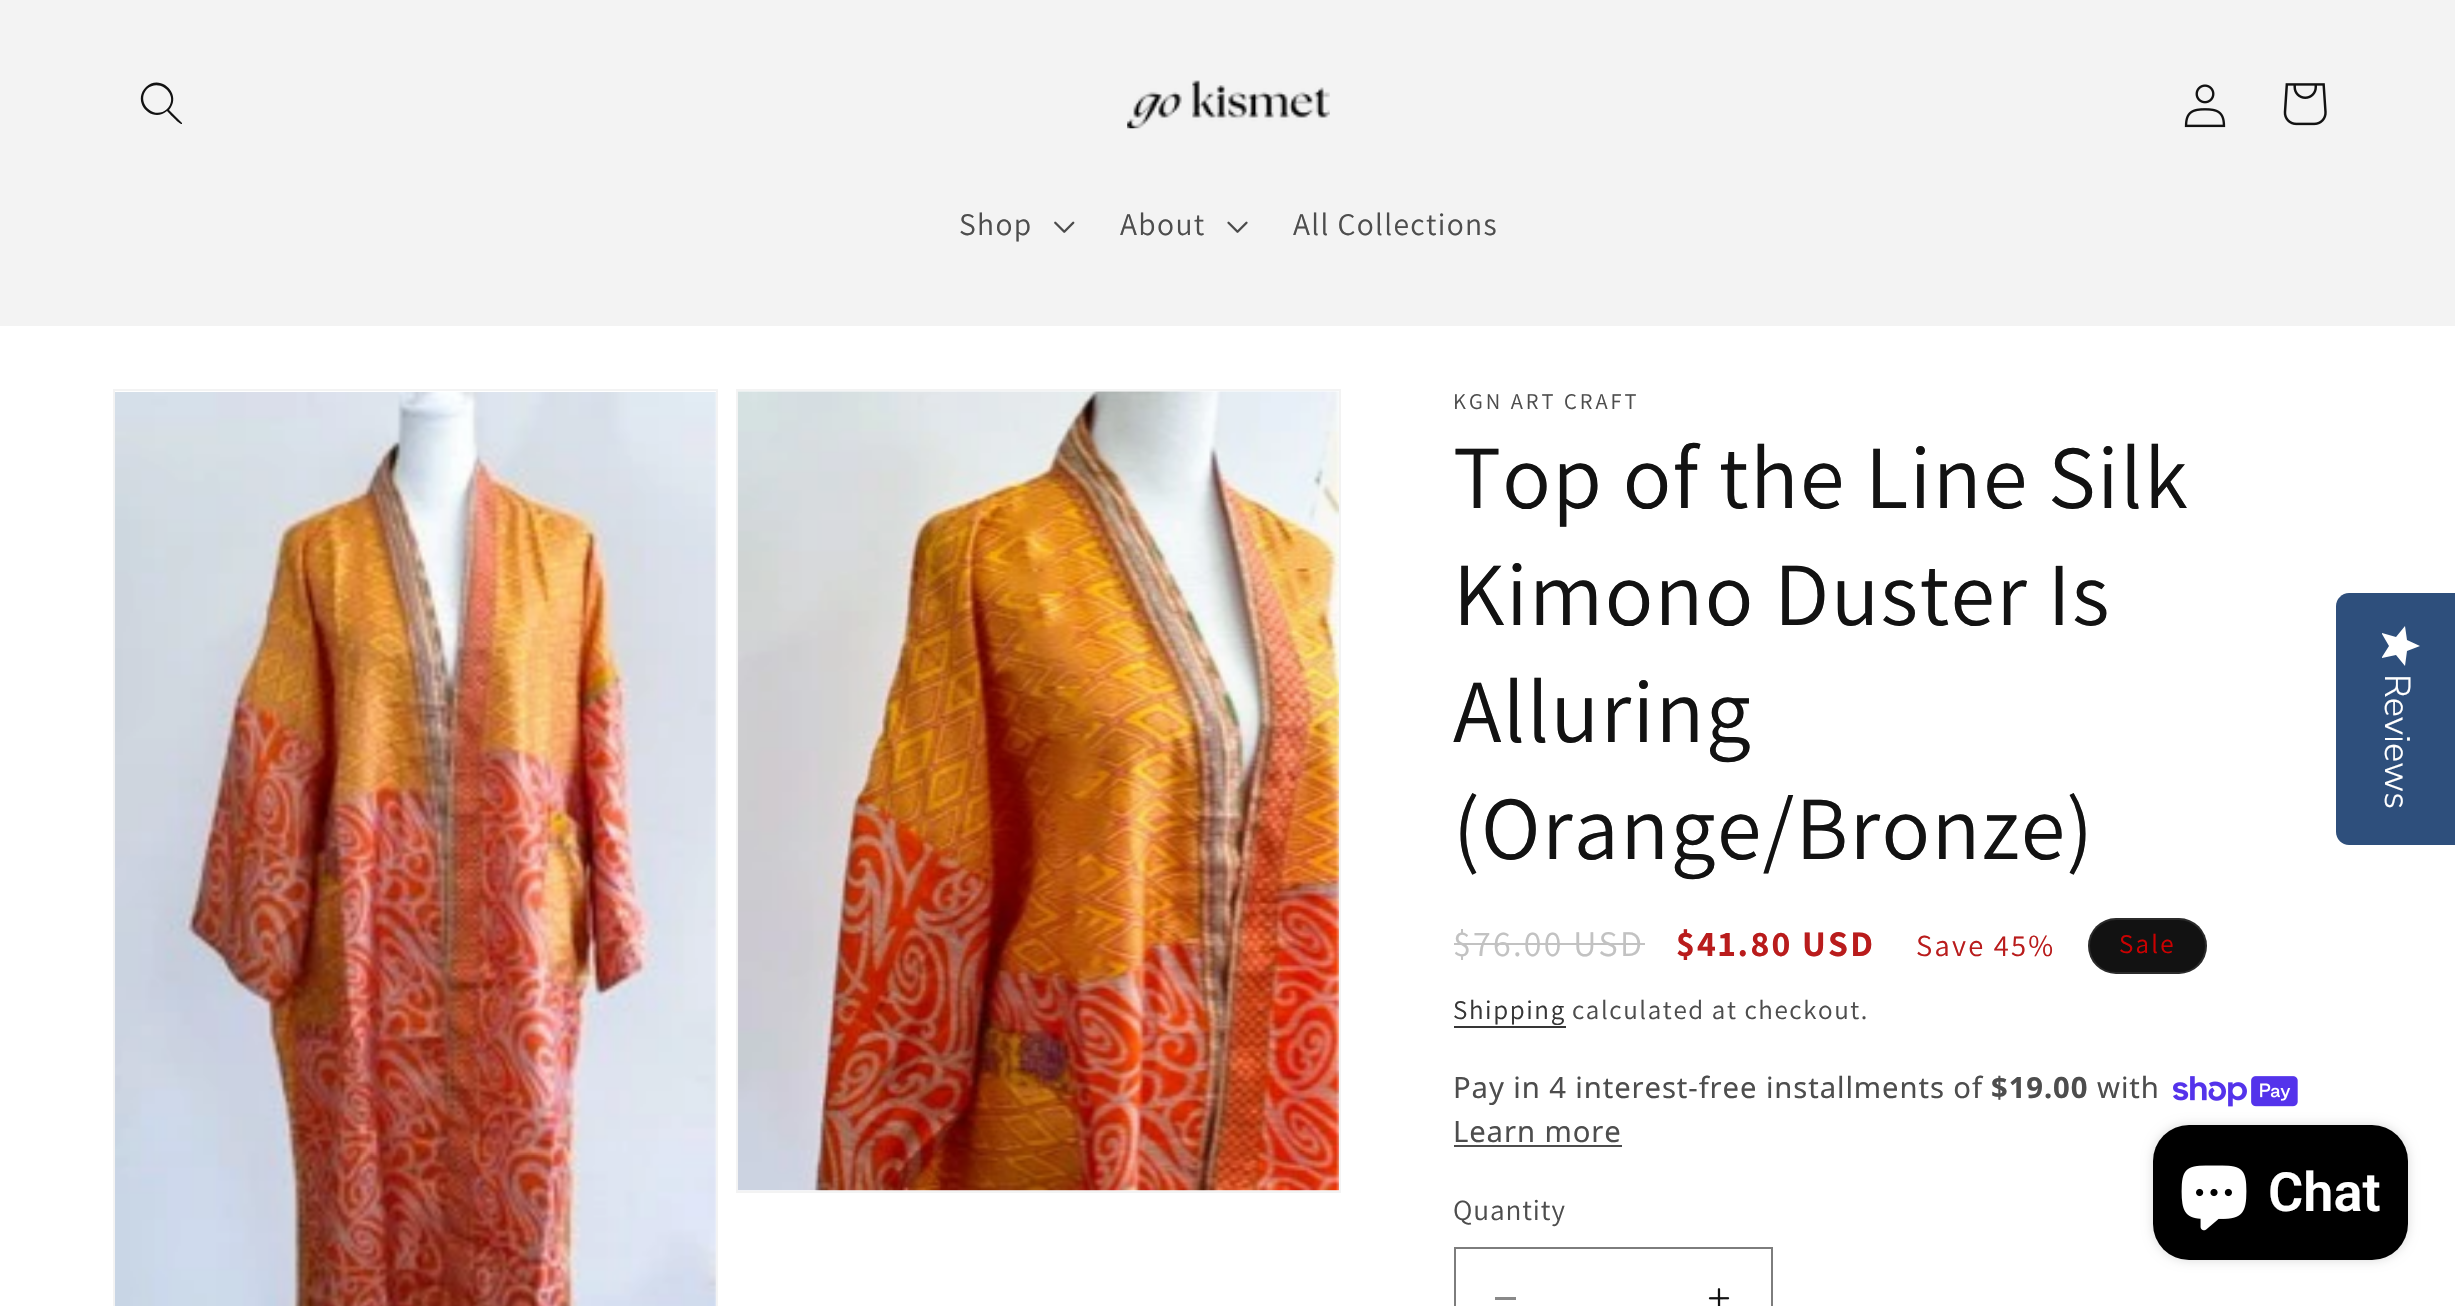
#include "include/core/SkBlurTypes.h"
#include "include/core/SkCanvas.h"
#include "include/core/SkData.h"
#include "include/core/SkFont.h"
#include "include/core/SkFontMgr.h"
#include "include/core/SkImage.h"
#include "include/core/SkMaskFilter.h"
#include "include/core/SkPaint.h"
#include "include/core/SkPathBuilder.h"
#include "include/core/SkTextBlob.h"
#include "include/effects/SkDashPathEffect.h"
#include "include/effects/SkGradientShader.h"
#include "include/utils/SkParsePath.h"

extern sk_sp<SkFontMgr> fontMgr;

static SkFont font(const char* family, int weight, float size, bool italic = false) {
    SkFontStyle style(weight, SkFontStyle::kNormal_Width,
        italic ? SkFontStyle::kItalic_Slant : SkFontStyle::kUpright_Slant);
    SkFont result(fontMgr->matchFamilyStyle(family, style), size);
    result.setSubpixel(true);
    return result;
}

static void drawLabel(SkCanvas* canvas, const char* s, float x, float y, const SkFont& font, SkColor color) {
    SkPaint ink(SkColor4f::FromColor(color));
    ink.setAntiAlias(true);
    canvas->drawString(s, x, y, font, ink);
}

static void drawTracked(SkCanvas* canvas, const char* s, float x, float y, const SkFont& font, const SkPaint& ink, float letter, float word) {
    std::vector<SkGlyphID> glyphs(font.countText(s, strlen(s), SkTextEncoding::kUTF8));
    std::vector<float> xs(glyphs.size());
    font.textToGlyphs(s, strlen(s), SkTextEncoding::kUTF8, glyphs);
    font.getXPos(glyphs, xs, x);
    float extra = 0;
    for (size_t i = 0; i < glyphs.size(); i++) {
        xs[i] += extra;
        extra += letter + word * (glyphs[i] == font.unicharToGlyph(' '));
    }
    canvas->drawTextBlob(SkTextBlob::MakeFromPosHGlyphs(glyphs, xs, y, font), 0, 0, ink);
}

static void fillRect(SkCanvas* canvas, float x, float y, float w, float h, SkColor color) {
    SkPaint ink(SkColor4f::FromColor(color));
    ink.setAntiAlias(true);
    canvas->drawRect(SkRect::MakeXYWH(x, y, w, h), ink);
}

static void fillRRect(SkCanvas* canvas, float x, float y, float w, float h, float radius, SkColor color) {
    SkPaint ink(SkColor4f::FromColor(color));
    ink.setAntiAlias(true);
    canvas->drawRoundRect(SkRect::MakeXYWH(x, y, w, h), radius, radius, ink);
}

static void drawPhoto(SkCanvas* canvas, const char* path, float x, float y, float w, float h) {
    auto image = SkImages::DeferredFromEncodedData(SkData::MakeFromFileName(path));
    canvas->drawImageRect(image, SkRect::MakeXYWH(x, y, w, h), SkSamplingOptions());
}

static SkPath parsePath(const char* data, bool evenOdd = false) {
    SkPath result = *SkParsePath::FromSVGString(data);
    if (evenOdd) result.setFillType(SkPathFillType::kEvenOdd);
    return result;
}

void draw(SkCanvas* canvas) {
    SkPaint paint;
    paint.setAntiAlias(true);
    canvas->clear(0xFFFFFFFF);
    fillRect(canvas, 0, 0, 2455, 326, 0xFFF3F3F3);
    paint.setColor(0xFF121212);
    canvas->drawPath(parsePath("M167 109C154 121 135 102 147 89C160 77 180 96 167 109ZM167 111C152 124 131 102 146 87C160 73 183 94 169 110L182 123V124C180 125 169 113 167 111Z", true), paint);
    drawPhoto(canvas, "assets/img1.png", 1127, 80, 203, 49);
    drawPhoto(canvas, "assets/img2.png", 2184, 84, 42, 44);
    drawPhoto(canvas, "assets/img3.png", 2283, 83, 44, 43);
    SkFont font1 = font("Assistant", 400, 31.5f);
    paint.setColor(0xFF4D4D4D);
    drawTracked(canvas, "Shop", 959, 235, font1, paint, 1.35f, 0);
    drawPhoto(canvas, "assets/img4.png", 1054, 221, 21, 12);
    drawTracked(canvas, "About", 1120, 235, font1, paint, 1.35f, 0);
    drawPhoto(canvas, "assets/img5.png", 1227, 221, 21, 12);
    drawTracked(canvas, "All Collections", 1293, 235, font1, paint, 1.35f, 0);
    paint.setStroke(true);
    paint.setStrokeWidth(2);
    paint.setColor(0xFFF3F3F3);
    canvas->drawRect(SkRect::MakeXYWH(114, 390, 603, 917), paint);
    drawPhoto(canvas, "assets/img6.png", 115, 392, 601, 914);
    canvas->drawRect(SkRect::MakeXYWH(737, 390, 603, 802), paint);
    drawPhoto(canvas, "assets/img7.png", 738, 391, 601, 800);
    SkFont font2 = font("Assistant", 400, 22.5f);
    paint.setStroke(false);
    paint.setColor(0xFF4D4D4D);
    drawTracked(canvas, "KGN ART CRAFT", 1453, 409, font2, paint, 3, 0);
    SkFont font3 = font("Assistant", 400, 90);
    paint.setColor(0xFF121212);
    drawTracked(canvas, "Top of the Line Silk", 1453, 508, font3, paint, 1.35f, 0);
    drawTracked(canvas, "Kimono Duster Is", 1453, 625, font3, paint, 1.35f, 0);
    drawTracked(canvas, "Alluring", 1453, 742, font3, paint, 1.35f, 0);
    drawTracked(canvas, "(Orange/Bronze)", 1453, 859, font3, paint, 1.35f, 0);
    SkFont font4 = font("Assistant", 400, 36);
    paint.setColor(0xFFC2C2C2);
    drawTracked(canvas, "$76.00 USD", 1453, 956, font4, paint, 2.25f, 0);
    fillRect(canvas, 1454, 943, 191, 2, 0xFFC2C2C2);
    SkFont font5 = font("Assistant", 700, 36);
    paint.setColor(0xFFB91C1C);
    drawTracked(canvas, "$41.80 USD", 1676, 956, font5, paint, 2.25f, 0);
    SkFont font6 = font("Assistant", 400, 30.5f);
    drawTracked(canvas, "Save 45%", 1916, 956, font6, paint, 2.25f, 0);
    fillRRect(canvas, 2088, 918, 119, 56, 28, 0xFF121212);
    paint.setStroke(true);
    paint.setColor(0x1AFFFFFF);
    canvas->drawRoundRect(SkRect::MakeXYWH(2089, 919, 117, 54), 27, 27, paint);
    SkFont font7 = font("Assistant", 400, 27);
    paint.setStroke(false);
    paint.setColor(0xFFCC0000);
    drawTracked(canvas, "Sale", 2119, 953, font7, paint, 2.25f, 0);
    paint.setColor(0xFF363636);
    drawTracked(canvas, "Shipping", 1453, 1019, font7, paint, 1.6f, 0);
    fillRect(canvas, 1454, 1026, 112, 2, 0xFF363636);
    paint.setColor(0xFF4D4D4D);
    drawTracked(canvas, "calculated at checkout.", 1572, 1019, font7, paint, 1.6f, 0);
    SkFont font8 = font("Noto Sans", 400, 29.25f);
    drawTracked(canvas, "Pay in 4 interest-free installments of", 1453, 1098, font8, paint, 0.9f, 0);
    SkFont font9 = font("Noto Sans", 700, 29.25f);
    drawTracked(canvas, "$19.00", 1991, 1098, font9, paint, 0.9f, 0);
    drawTracked(canvas, "with", 2097, 1098, font8, paint, 0.9f, 0);
    drawPhoto(canvas, "assets/img8.png", 2173, 1076, 125, 31);
    drawTracked(canvas, "Learn more", 1453, 1142, font8, paint, 0.9f, 0);
    fillRect(canvas, 1454, 1145, 168, 2, 0xFF4D4D4D);
    SkFont font10 = font("Assistant", 400, 29.25f);
    drawTracked(canvas, "Quantity", 1453, 1220, font10, paint, 0.9f, 0);
    fillRect(canvas, 1495, 1297, 21, 3, 0xFF898989);
    drawPhoto(canvas, "assets/img9.png", 1708, 1288, 22, 18);
    paint.setStroke(true);
    paint.setColor(0xFF7D7D7D);
    canvas->drawRect(SkRect::MakeXYWH(1455, 1248, 317, 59), paint);
    paint.setStroke(false);
    paint.setColor(0xFF2E4F7C);
    canvas->drawPath(parsePath("M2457 593V845H2349C2342 845 2336 839 2336 832V606C2336 599 2342 593 2349 593Z"), paint);
    {
        const SkColor colors[] = {0xFFFFFFFF, 0xFFEAEAEA};
        const float stops[] = {1, 1};
        const SkPoint ends[] = {{2420, 626}, {2420, 666}};
        paint.setShader(SkGradientShader::MakeLinear(ends, colors, stops, 2, SkTileMode::kClamp));
        paint.setAlpha(255);
    }
    canvas->drawPath(parsePath("M2389 646L2382 634V633L2396 637L2405 626L2407 640L2420 646L2407 651L2405 666L2396 655L2382 658V657Z"), paint);
    SkFont font11 = font("Nunito Sans", 300, 36);
    canvas->save();
    canvas->rotate(90, 2385, 674);
    drawLabel(canvas, "Reviews", 2385, 674, font11, 0xFFFFFFFF);
    canvas->restore();
    paint.setShader(nullptr);
    paint.setColor(0x26000000);
    paint.setMaskFilter(SkMaskFilter::MakeBlur(kNormal_SkBlurStyle, 5.5f));
    canvas->drawRoundRect(SkRect::MakeXYWH(2153, 1125, 255, 135), 36, 36, paint);
    paint.setMaskFilter(nullptr);
    fillRRect(canvas, 2153, 1125, 255, 135, 36, 0xFF000000);
    drawPhoto(canvas, "assets/img10.png", 2181, 1165, 66, 66);
    SkFont font12 = font("Roboto", 600, 54);
    drawLabel(canvas, "Chat", 2268, 1211, font12, 0xFFFFFFFF);
}
